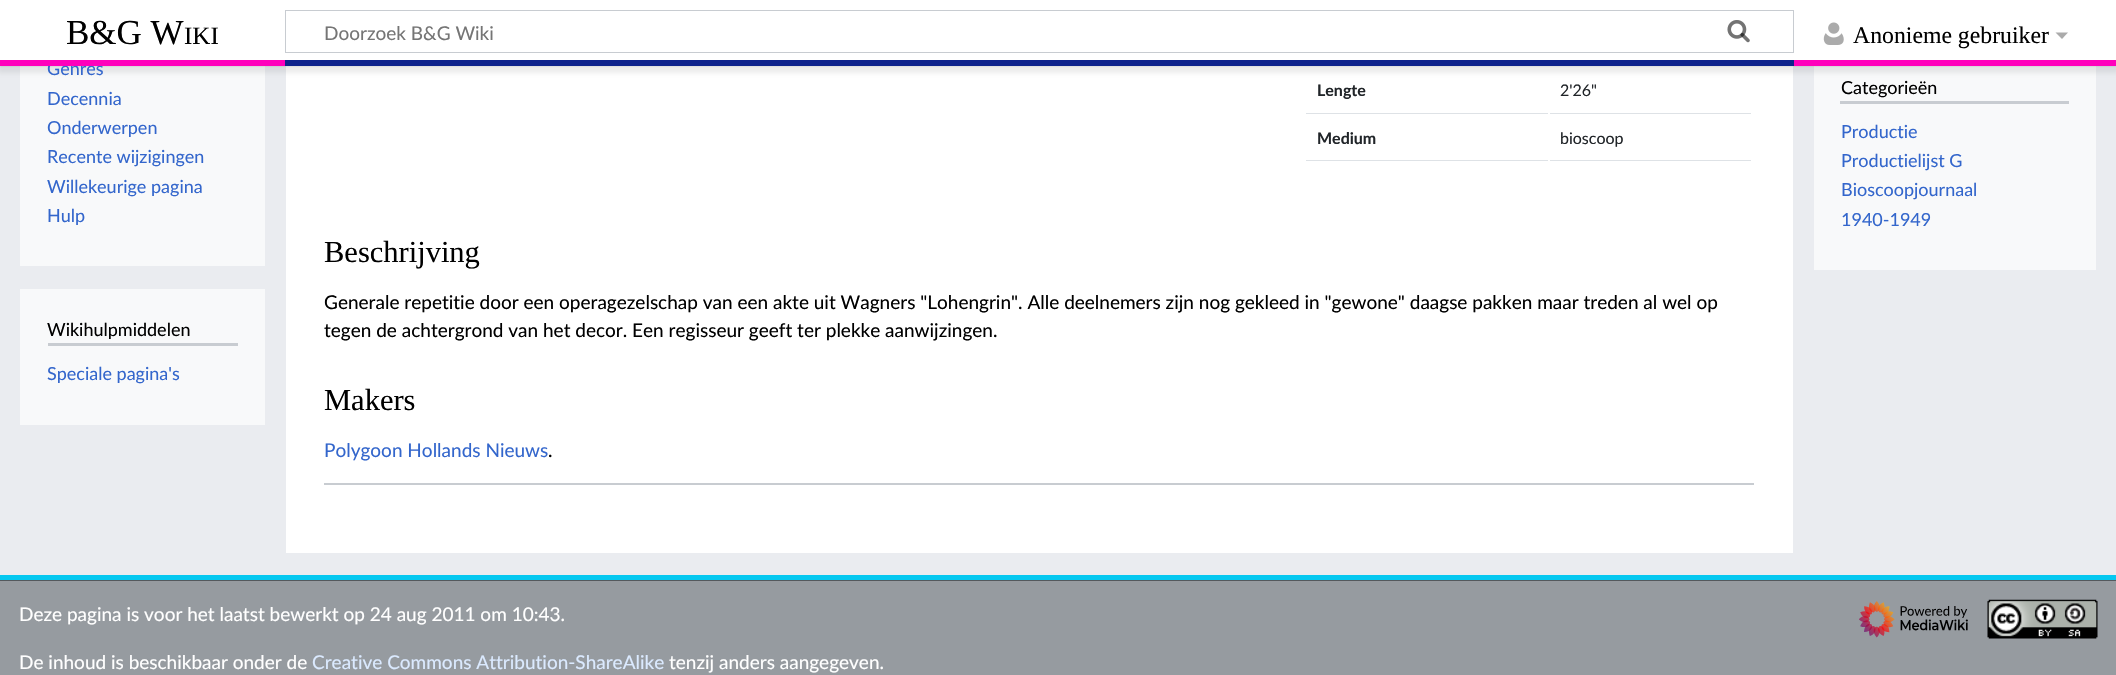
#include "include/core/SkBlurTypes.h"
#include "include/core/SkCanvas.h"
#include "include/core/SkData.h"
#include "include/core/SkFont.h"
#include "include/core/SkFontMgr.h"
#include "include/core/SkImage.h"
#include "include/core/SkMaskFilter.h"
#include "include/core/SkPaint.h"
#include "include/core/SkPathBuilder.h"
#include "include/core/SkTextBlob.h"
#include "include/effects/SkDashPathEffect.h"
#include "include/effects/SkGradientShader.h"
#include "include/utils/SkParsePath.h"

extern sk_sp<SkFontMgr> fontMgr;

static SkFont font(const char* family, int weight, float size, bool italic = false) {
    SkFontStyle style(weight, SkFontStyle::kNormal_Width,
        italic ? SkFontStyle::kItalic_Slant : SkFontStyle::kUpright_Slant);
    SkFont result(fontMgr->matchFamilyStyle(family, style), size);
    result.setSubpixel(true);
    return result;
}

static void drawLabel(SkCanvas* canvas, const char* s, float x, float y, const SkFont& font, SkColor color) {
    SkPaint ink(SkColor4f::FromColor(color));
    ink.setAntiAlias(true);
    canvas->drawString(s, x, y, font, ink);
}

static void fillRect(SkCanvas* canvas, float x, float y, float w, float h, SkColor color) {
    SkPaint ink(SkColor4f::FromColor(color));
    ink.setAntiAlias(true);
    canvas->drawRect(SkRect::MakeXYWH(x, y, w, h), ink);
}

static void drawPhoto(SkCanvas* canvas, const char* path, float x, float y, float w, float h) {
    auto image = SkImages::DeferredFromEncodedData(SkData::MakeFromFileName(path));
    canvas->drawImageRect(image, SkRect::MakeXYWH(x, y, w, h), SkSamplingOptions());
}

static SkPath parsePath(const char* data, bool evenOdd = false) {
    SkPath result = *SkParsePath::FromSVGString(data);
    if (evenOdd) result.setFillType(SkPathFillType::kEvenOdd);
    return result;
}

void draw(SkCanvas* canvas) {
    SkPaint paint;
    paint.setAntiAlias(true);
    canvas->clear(0xFF969BA0);
    fillRect(canvas, 0, 66, 2116, 509, 0xFFEAECF0);
    fillRect(canvas, 20, 66, 245, 200, 0xFFF8F9FA);
    fillRect(canvas, 286, 66, 1507, 487, 0xFFFFFFFF);
    fillRect(canvas, 1814, 66, 282, 204, 0xFFF8F9FA);
    paint.setColor(0x33000000);
    paint.setMaskFilter(SkMaskFilter::MakeBlur(kNormal_SkBlurStyle, 1));
    canvas->drawRect(SkRect::MakeXYWH(0, 60, 2116, 6), paint);
    paint.setMaskFilter(nullptr);
    paint.setColor(0x12000000);
    paint.setMaskFilter(SkMaskFilter::MakeBlur(kNormal_SkBlurStyle, 2));
    canvas->drawRect(SkRect::MakeXYWH(-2, 61, 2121, 12), paint);
    paint.setMaskFilter(nullptr);
    fillRect(canvas, 0, 0, 2116, 60, 0xFFFFFFFF);
    SkFont font1 = font("Liberation Serif", 400, 35);
    drawLabel(canvas, "B&G W", 66, 44, font1, 0xFF000000);
    SkFont font2 = font("Liberation Serif", 400, 25);
    drawLabel(canvas, "IKI", 184, 44, font2, 0xFF000000);
    paint.setStroke(true);
    paint.setStrokeWidth(1);
    paint.setColor(0xFFC8CCD1);
    canvas->drawRect(SkRect::MakeXYWH(285.5f, 10.5f, 1508, 42), paint);
    drawPhoto(canvas, "assets/img1.png", 1727, 20, 23, 23);
    SkFont font3 = font("Lato", 400, 19);
    drawLabel(canvas, "Doorzoek B&G Wiki", 324, 40, font3, 0xFF757575);
    drawPhoto(canvas, "assets/img2.png", 1727, 20, 23, 23);
    drawPhoto(canvas, "assets/img3.png", 1823, 22, 21, 23);
    SkFont font4 = font("Liberation Serif", 400, 23.75f);
    drawLabel(canvas, "Anonieme gebruiker", 1853, 43, font4, 0xFF000000);
    paint.setStroke(false);
    paint.setColor(0xFFABABAB);
    canvas->drawPath(parsePath("M2068 32.5L2062 39L2055.5 32.5Z"), paint);
    SkFont font5 = font("Lato", 400, 18);
    drawLabel(canvas, "Genres", 47, 75, font5, 0xFF3366CC);
    fillRect(canvas, 0, 60, 285, 6, 0xFFFF00BC);
    fillRect(canvas, 285, 60, 1509, 6, 0xFF0F238C);
    fillRect(canvas, 1794, 60, 322, 6, 0xFFFF00BC);
    fillRect(canvas, 0, 575, 2116, 5, 0xFF05C8F0);
    drawLabel(canvas, "Decennia", 47, 105, font5, 0xFF3366CC);
    drawLabel(canvas, "Onderwerpen", 47, 134, font5, 0xFF3366CC);
    drawLabel(canvas, "Recente wijzigingen", 47, 163, font5, 0xFF3366CC);
    drawLabel(canvas, "Willekeurige pagina", 47, 193, font5, 0xFF3366CC);
    drawLabel(canvas, "Hulp", 47, 222, font5, 0xFF3366CC);
    fillRect(canvas, 20, 289, 245, 136, 0xFFF8F9FA);
    fillRect(canvas, 48, 343, 190, 3, 0xFFC8CCD1);
    drawLabel(canvas, "Wikihulpmiddelen", 47, 336, font5, 0xFF000000);
    drawLabel(canvas, "Speciale pagina's", 47, 380, font5, 0xFF3366CC);
    fillRect(canvas, 1306, 113, 242, 1, 0xFFDEE2E6);
    SkFont font6 = font("Lato", 700, 16);
    drawLabel(canvas, "Lengte", 1317, 96, font6, 0xFF212529);
    fillRect(canvas, 1550, 113, 201, 1, 0xFFDEE2E6);
    SkFont font7 = font("Lato", 400, 16);
    drawLabel(canvas, "2'26\"", 1560, 96, font7, 0xFF212529);
    fillRect(canvas, 1306, 160, 242, 1, 0xFFDEE2E6);
    drawLabel(canvas, "Medium", 1317, 144, font6, 0xFF212529);
    fillRect(canvas, 1550, 160, 201, 1, 0xFFDEE2E6);
    drawLabel(canvas, "bioscoop", 1560, 144, font7, 0xFF212529);
    SkFont font8 = font("Liberation Serif", 400, 30.5f);
    drawLabel(canvas, "Beschrijving", 324, 262, font8, 0xFF000000);
    drawLabel(canvas, "Generale repetitie door een operagezelschap van een akte uit Wagners \"Lohengrin\". Alle deelnemers zijn nog gekleed in \"gewone\" daagse pakken maar treden al wel op", 324, 309, font3, 0xFF000000);
    drawLabel(canvas, "tegen de achtergrond van het decor. Een regisseur geeft ter plekke aanwijzingen.", 324, 337, font3, 0xFF000000);
    drawLabel(canvas, "Makers", 324, 410, font8, 0xFF000000);
    drawLabel(canvas, "Polygoon Hollands Nieuws", 324, 457, font3, 0xFF3366CC);
    drawLabel(canvas, ".", 548, 457, font3, 0xFF000000);
    fillRect(canvas, 324, 483, 1430, 2, 0xFFC8CCD1);
    fillRect(canvas, 1840, 101, 229, 3, 0xFFC8CCD1);
    drawLabel(canvas, "Categorieën", 1841, 94, font5, 0xFF000000);
    drawLabel(canvas, "Productie", 1841, 138, font5, 0xFF3366CC);
    drawLabel(canvas, "Productielijst G", 1841, 167, font5, 0xFF3366CC);
    drawLabel(canvas, "Bioscoopjournaal", 1841, 196, font5, 0xFF3366CC);
    drawLabel(canvas, "1940-1949", 1841, 226, font5, 0xFF3366CC);
    fillRect(canvas, 0, 580, 2116, 1, 0xFF54595D);
    drawLabel(canvas, "Deze pagina is voor het laatst bewerkt op 24 aug 2011 om 10:43.", 19, 621, font3, 0xFFFFFFFF);
    drawLabel(canvas, "De inhoud is beschikbaar onder de", 19, 669, font3, 0xFFFFFFFF);
    drawLabel(canvas, "Creative Commons Attribution-ShareAlike", 312, 669, font3, 0xFFDBEAFF);
    drawLabel(canvas, "tenzij anders aangegeven.", 669, 669, font3, 0xFFFFFFFF);
    drawPhoto(canvas, "assets/img4.png", 1859, 601, 109, 37);
    drawPhoto(canvas, "assets/img5.png", 1987, 599, 111, 40);
}
